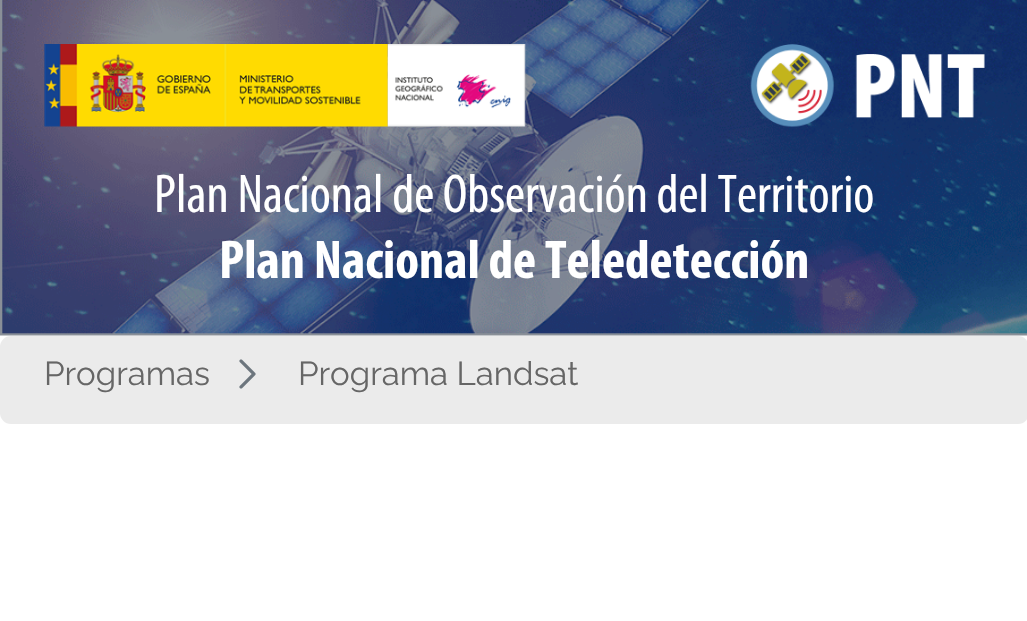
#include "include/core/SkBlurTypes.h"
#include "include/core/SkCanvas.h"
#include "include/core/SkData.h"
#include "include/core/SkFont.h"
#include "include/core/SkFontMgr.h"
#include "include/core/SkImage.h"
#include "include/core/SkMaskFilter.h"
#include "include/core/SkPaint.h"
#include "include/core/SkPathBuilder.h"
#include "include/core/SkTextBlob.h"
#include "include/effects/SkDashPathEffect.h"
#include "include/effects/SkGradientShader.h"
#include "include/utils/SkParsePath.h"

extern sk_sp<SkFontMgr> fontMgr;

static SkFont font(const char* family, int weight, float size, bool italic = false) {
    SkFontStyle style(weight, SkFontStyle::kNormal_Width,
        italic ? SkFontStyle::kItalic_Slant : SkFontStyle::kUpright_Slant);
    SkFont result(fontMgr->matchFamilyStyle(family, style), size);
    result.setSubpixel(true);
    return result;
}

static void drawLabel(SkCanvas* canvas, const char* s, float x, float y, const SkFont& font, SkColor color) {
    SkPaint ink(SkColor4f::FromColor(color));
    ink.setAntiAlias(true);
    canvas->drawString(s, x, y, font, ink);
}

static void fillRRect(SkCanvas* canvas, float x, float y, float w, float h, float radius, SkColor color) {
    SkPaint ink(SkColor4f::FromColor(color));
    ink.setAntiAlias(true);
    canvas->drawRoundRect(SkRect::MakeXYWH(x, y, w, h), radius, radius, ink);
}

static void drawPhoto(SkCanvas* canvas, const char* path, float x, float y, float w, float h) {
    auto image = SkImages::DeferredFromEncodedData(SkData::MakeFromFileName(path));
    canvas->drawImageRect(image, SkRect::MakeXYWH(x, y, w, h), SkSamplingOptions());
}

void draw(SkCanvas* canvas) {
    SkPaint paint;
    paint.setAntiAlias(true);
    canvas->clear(0xFFFFFFFF);
    drawPhoto(canvas, "assets/img1.png", 0, 0, 1027, 336);
    drawPhoto(canvas, "assets/img2.png", 44, 44, 344, 83);
    drawPhoto(canvas, "assets/img3.png", 387, 44, 139, 83);
    drawPhoto(canvas, "assets/img4.png", 750, 44, 235, 83);
    SkFont font1 = font("Myriad", 400, 55);
    drawLabel(canvas, "Plan Nacional de Observación del Territorio", 154, 212, font1, 0xFFFFFFFF);
    SkFont font2 = font("Myriad", 700, 55);
    drawLabel(canvas, "Plan Nacional de Teledetección", 219, 278, font2, 0xFFFFFFFF);
    fillRRect(canvas, 0, 336, 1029, 88, 11, 0xFFEBEBEB);
    SkFont font3 = font("Raleway", 400, 33);
    drawLabel(canvas, "Programas", 44, 385, font3, 0xFF666666);
    drawPhoto(canvas, "assets/img5.png", 239, 359, 17, 30);
    drawLabel(canvas, "Programa Landsat", 298, 385, font3, 0xFF666666);
}
